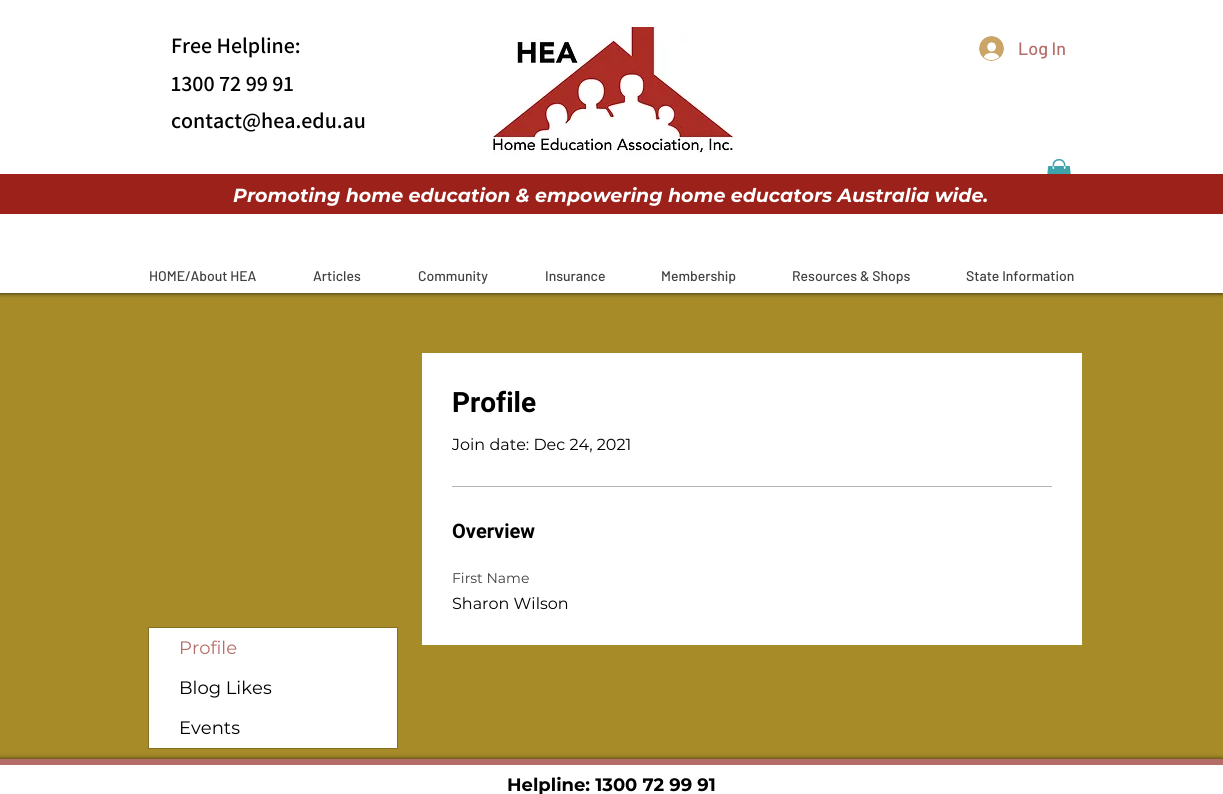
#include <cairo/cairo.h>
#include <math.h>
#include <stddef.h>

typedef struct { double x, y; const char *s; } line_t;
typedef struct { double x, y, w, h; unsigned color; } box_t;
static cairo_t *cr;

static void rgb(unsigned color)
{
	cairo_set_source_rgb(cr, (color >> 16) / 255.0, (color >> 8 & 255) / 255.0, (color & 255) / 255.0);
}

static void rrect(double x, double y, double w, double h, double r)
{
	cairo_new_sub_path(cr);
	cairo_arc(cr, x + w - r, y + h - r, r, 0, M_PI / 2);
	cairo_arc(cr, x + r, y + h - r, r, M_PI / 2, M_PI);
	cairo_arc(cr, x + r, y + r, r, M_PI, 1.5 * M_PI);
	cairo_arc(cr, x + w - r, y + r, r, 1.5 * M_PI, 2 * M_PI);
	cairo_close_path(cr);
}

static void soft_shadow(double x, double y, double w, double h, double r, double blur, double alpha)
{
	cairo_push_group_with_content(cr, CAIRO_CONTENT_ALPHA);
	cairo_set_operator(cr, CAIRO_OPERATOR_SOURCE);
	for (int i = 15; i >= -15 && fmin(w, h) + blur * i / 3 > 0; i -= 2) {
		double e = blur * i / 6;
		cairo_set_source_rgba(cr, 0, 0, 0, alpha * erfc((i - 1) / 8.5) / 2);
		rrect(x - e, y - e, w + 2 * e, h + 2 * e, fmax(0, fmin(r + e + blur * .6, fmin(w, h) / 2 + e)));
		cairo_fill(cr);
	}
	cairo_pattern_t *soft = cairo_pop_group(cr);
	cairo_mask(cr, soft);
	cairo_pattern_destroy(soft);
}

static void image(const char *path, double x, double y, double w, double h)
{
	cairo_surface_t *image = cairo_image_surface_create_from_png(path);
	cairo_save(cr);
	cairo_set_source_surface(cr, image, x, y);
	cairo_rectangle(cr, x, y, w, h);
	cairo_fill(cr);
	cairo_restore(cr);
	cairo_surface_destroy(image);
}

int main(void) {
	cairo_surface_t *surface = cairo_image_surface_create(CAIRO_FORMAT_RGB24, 1223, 794);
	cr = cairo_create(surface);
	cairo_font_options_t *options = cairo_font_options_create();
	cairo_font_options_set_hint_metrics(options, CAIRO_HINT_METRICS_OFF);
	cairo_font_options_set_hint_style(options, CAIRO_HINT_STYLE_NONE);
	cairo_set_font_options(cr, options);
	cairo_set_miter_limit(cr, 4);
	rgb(0xa68b28);
	cairo_paint(cr);
	rgb(0x000000);
	soft_shadow(0, 1, 1223, 293, 0, 2, 0.6);
	rgb(0xffffff);
	cairo_rectangle(cr, 0, 0, 1223, 293);
	cairo_fill(cr);
	image("img/1.png", 493, 27, 240, 128);
	image("img/2.png", 979, 36, 25, 25);
	image("img/3.png", 1047, 159, 24, 15);
	{
		static const box_t items[] = {
			{0, 174, 1223, 40, 0x9c211a},
			{422, 353, 660, 292, 0xffffff},
			{452, 486, 600, 1, 0xb3b3b3},
		};
		for (size_t i = 0; i < sizeof items / sizeof *items; i++) {
			rgb(items[i].color);
			cairo_rectangle(cr, items[i].x, items[i].y, items[i].w, items[i].h);
			cairo_fill(cr);
		}
	}
	cairo_rectangle(cr, 148.5, 627.5, 249, 121);
	rgb(0x856f20);
	cairo_set_line_width(cr, 1);
	cairo_stroke(cr);
	rgb(0xffffff);
	cairo_rectangle(cr, 149, 628, 248, 120);
	cairo_fill(cr);
	rgb(0x000000);
	soft_shadow(0, 759, 1223, 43, 0, 2.5, 0.7);
	rgb(0xffffff);
	cairo_rectangle(cr, 0, 765, 1223, 29);
	cairo_fill(cr);
	rgb(0xb56d69);
	cairo_rectangle(cr, 0, 759, 1223, 6);
	cairo_fill(cr);
	cairo_select_font_face(cr, "Assistant SemiBold", CAIRO_FONT_SLANT_NORMAL, CAIRO_FONT_WEIGHT_NORMAL);
	cairo_set_font_size(cr, 22);
	rgb(0x000000);
	{
		static const line_t items[] = {
			{171, 53, "Free Helpline:"},
			{171, 91, "1300 72 99 91"},
			{171, 128, "contact@hea.edu.au"},
		};
		for (size_t i = 0; i < sizeof items / sizeof *items; i++) {
			cairo_move_to(cr, items[i].x, items[i].y);
			cairo_show_text(cr, items[i].s);
		}
	}
	cairo_select_font_face(cr, "Barlow Medium", CAIRO_FONT_SLANT_NORMAL, CAIRO_FONT_WEIGHT_NORMAL);
	cairo_set_font_size(cr, 18);
	rgb(0xb56d69);
	cairo_move_to(cr, 1018, 55);
	cairo_show_text(cr, "Log In");
	cairo_select_font_face(cr, "Montserrat", CAIRO_FONT_SLANT_ITALIC, CAIRO_FONT_WEIGHT_BOLD);
	cairo_set_font_size(cr, 19);
	rgb(0xffffff);
	cairo_move_to(cr, 233, 202);
	cairo_show_text(cr, "Promoting home education & empowering home educators Australia wide.");
	cairo_select_font_face(cr, "Barlow Medium", CAIRO_FONT_SLANT_NORMAL, CAIRO_FONT_WEIGHT_NORMAL);
	cairo_set_font_size(cr, 14);
	rgb(0x404040);
	{
		static const line_t items[] = {
			{149, 281, "HOME/About HEA"},
			{313, 281, "Articles"},
			{418, 281, "Community"},
			{545, 281, "Insurance"},
			{661, 281, "Membership"},
			{792, 281, "Resources & Shops"},
			{966, 281, "State Information"},
		};
		for (size_t i = 0; i < sizeof items / sizeof *items; i++) {
			cairo_move_to(cr, items[i].x, items[i].y);
			cairo_show_text(cr, items[i].s);
		}
	}
	cairo_select_font_face(cr, "Roboto", CAIRO_FONT_SLANT_NORMAL, CAIRO_FONT_WEIGHT_BOLD);
	cairo_set_font_size(cr, 28);
	rgb(0x000000);
	cairo_move_to(cr, 452, 412);
	cairo_show_text(cr, "Profile");
	cairo_select_font_face(cr, "Montserrat", CAIRO_FONT_SLANT_NORMAL, CAIRO_FONT_WEIGHT_NORMAL);
	cairo_set_font_size(cr, 16);
	cairo_move_to(cr, 452, 450);
	cairo_show_text(cr, "Join date: Dec 24, 2021");
	cairo_select_font_face(cr, "Roboto", CAIRO_FONT_SLANT_NORMAL, CAIRO_FONT_WEIGHT_BOLD);
	cairo_set_font_size(cr, 20);
	cairo_move_to(cr, 452, 538);
	cairo_show_text(cr, "Overview");
	cairo_select_font_face(cr, "Montserrat", CAIRO_FONT_SLANT_NORMAL, CAIRO_FONT_WEIGHT_NORMAL);
	cairo_set_font_size(cr, 14);
	rgb(0x404040);
	cairo_move_to(cr, 452, 583);
	cairo_show_text(cr, "First Name");
	cairo_set_font_size(cr, 16);
	rgb(0x000000);
	cairo_move_to(cr, 452, 609);
	cairo_show_text(cr, "Sharon Wilson");
	cairo_set_font_size(cr, 18);
	rgb(0xb56d69);
	cairo_move_to(cr, 179, 654);
	cairo_show_text(cr, "Profile");
	rgb(0x000000);
	cairo_move_to(cr, 179, 694);
	cairo_show_text(cr, "Blog Likes");
	cairo_move_to(cr, 179, 734);
	cairo_show_text(cr, "Events");
	cairo_select_font_face(cr, "Montserrat", CAIRO_FONT_SLANT_NORMAL, CAIRO_FONT_WEIGHT_BOLD);
	cairo_move_to(cr, 507, 791);
	cairo_show_text(cr, "Helpline: 1300 72 99 91");
	cairo_surface_write_to_png(surface, "page.png");
	cairo_font_options_destroy(options);
	cairo_destroy(cr);
	cairo_surface_destroy(surface);
	return 0;
}
